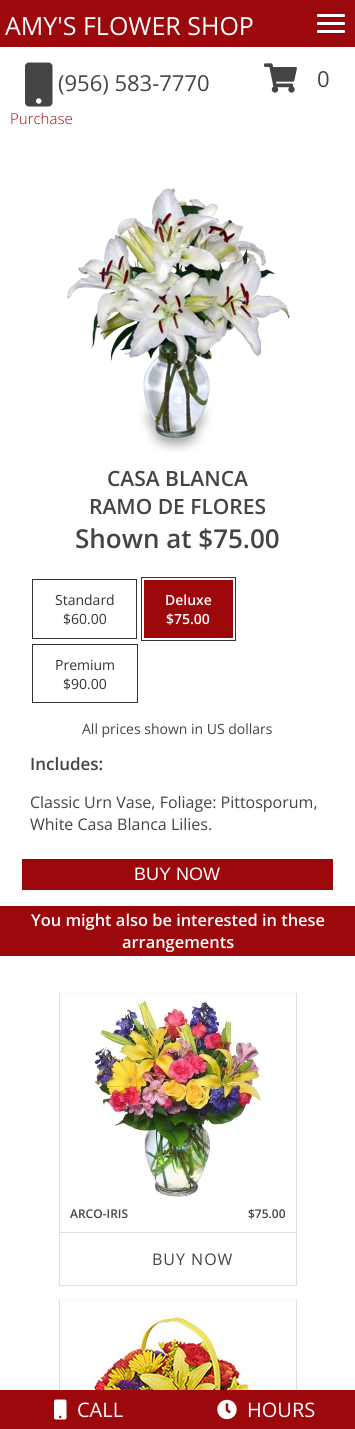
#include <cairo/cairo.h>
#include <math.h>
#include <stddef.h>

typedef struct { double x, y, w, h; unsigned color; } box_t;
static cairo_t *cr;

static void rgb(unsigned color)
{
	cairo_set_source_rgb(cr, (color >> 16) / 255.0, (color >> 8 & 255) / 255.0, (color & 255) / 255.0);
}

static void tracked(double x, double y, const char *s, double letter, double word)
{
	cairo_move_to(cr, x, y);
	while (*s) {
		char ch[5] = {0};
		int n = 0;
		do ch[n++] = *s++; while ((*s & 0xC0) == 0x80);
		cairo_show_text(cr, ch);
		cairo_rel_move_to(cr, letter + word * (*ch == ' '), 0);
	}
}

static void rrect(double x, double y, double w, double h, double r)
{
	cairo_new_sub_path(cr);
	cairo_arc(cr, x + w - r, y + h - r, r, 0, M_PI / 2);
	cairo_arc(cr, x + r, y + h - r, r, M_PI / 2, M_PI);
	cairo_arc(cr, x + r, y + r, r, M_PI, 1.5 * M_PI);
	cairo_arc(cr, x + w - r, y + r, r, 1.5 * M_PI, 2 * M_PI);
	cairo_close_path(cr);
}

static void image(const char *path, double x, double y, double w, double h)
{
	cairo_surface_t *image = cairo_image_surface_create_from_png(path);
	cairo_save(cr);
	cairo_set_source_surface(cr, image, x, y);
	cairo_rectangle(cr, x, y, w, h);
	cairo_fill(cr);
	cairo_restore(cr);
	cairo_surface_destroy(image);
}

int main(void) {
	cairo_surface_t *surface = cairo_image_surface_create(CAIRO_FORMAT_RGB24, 355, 1429);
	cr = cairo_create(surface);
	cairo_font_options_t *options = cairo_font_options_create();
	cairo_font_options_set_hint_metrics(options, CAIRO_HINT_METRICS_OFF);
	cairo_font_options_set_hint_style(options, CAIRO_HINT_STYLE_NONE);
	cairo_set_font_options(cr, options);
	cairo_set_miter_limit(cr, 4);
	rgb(0xffffff);
	cairo_paint(cr);
	rgb(0x9d080d);
	cairo_rectangle(cr, 0, 0, 355, 47);
	cairo_fill(cr);
	rgb(0x76060a);
	cairo_new_path(cr);
	cairo_move_to(cr, 317, 16);
	cairo_curve_to(cr, 317, 19, 319, 18, 322.5, 18);
	cairo_line_to(cr, 339.5, 18);
	cairo_curve_to(cr, 343, 18, 345, 19, 345, 16);
	cairo_line_to(cr, 344.5, 17);
	cairo_line_to(cr, 317.5, 17);
	cairo_close_path(cr);
	cairo_fill(cr);
	rgb(0xffffff);
	rrect(317, 14, 28, 3, 1);
	cairo_fill(cr);
	rgb(0x76060a);
	cairo_new_path(cr);
	cairo_move_to(cr, 317, 24);
	cairo_curve_to(cr, 317, 27, 319, 26, 322.5, 26);
	cairo_line_to(cr, 339.5, 26);
	cairo_curve_to(cr, 343, 26, 345, 27, 345, 24);
	cairo_line_to(cr, 344.5, 25);
	cairo_line_to(cr, 317.5, 25);
	cairo_close_path(cr);
	cairo_fill(cr);
	rgb(0xffffff);
	rrect(317, 22, 28, 3, 1);
	cairo_fill(cr);
	rgb(0x76060a);
	cairo_new_path(cr);
	cairo_move_to(cr, 317, 32);
	cairo_curve_to(cr, 317, 35, 319, 34, 322.5, 34);
	cairo_line_to(cr, 339.5, 34);
	cairo_curve_to(cr, 343, 34, 345, 35, 345, 32);
	cairo_line_to(cr, 344.5, 33);
	cairo_line_to(cr, 317.5, 33);
	cairo_close_path(cr);
	cairo_fill(cr);
	rgb(0xffffff);
	rrect(317, 30, 28, 3, 1);
	cairo_fill(cr);
	image("img/1.png", 25, 62, 28, 45);
	image("img/2.png", 264, 63, 33, 30);
	image("img/3.png", 67, 188, 223, 264);
	cairo_rectangle(cr, 32.5, 579.5, 104, 59);
	rgb(0x333333);
	cairo_set_line_width(cr, 1);
	cairo_stroke(cr);
	cairo_rectangle(cr, 141.5, 577.5, 94, 63);
	cairo_stroke(cr);
	rgb(0x9d080d);
	cairo_rectangle(cr, 144, 580, 89, 58);
	cairo_fill(cr);
	cairo_rectangle(cr, 32.5, 644.5, 105, 58);
	rgb(0x333333);
	cairo_stroke(cr);
	{
		static const box_t items[] = {
			{22, 859, 311, 31, 0x9d080d},
			{0, 906, 355, 50, 0x9d080d},
			{59, 993, 238, 1, 0xf9f9f9},
			{296, 993, 1, 293, 0xe2dedd},
			{59, 1285, 238, 1, 0xe2dedd},
			{59, 993, 1, 293, 0xe2dedd},
		};
		for (size_t i = 0; i < sizeof items / sizeof *items; i++) {
			rgb(items[i].color);
			cairo_rectangle(cr, items[i].x, items[i].y, items[i].w, items[i].h);
			cairo_fill(cr);
		}
	}
	image("img/4.png", 94, 999, 167, 199);
	{
		static const box_t items[] = {
			{60, 1232, 236, 1, 0xe2dedd},
			{59, 1299, 238, 1, 0xf9f9f9},
			{296, 1299, 1, 91, 0xe2dedd},
			{59, 1299, 1, 91, 0xe2dedd},
		};
		for (size_t i = 0; i < sizeof items / sizeof *items; i++) {
			rgb(items[i].color);
			cairo_rectangle(cr, items[i].x, items[i].y, items[i].w, items[i].h);
			cairo_fill(cr);
		}
	}
	image("img/5.png", 94, 1312, 167, 78);
	rgb(0x9d080d);
	cairo_rectangle(cr, 0, 1390, 355, 39);
	cairo_fill(cr);
	image("img/6.png", 54, 1399, 13, 21);
	image("img/7.png", 217, 1399, 20, 21);
	cairo_select_font_face(cr, "Open Sans", CAIRO_FONT_SLANT_NORMAL, CAIRO_FONT_WEIGHT_NORMAL);
	cairo_set_font_size(cr, 25);
	rgb(0xffffff);
	cairo_move_to(cr, 5, 35);
	cairo_show_text(cr, "AMY'S FLOWER SHOP");
	cairo_set_font_size(cr, 22);
	rgb(0x444444);
	cairo_move_to(cr, 58, 91);
	cairo_show_text(cr, "(956) 583-7770");
	cairo_move_to(cr, 317, 87);
	cairo_show_text(cr, "0");
	cairo_select_font_face(cr, "Open Sans Light", CAIRO_FONT_SLANT_NORMAL, CAIRO_FONT_WEIGHT_NORMAL);
	cairo_set_font_size(cr, 15);
	rgb(0x9d080d);
	cairo_move_to(cr, 10, 124);
	cairo_show_text(cr, "Purchase");
	cairo_select_font_face(cr, "Open Sans SemiBold", CAIRO_FONT_SLANT_NORMAL, CAIRO_FONT_WEIGHT_NORMAL);
	cairo_set_font_size(cr, 21);
	rgb(0x444444);
	cairo_move_to(cr, 107, 486);
	cairo_show_text(cr, "CASA BLANCA");
	cairo_move_to(cr, 89, 514);
	cairo_show_text(cr, "RAMO DE FLORES");
	cairo_set_font_size(cr, 26);
	cairo_move_to(cr, 75, 548);
	cairo_show_text(cr, "Shown at $75.00");
	cairo_select_font_face(cr, "Open Sans", CAIRO_FONT_SLANT_NORMAL, CAIRO_FONT_WEIGHT_NORMAL);
	cairo_set_font_size(cr, 14);
	rgb(0x333333);
	cairo_move_to(cr, 55, 605);
	cairo_show_text(cr, "Standard");
	cairo_move_to(cr, 63, 624);
	cairo_show_text(cr, "$60.00");
	cairo_select_font_face(cr, "Open Sans SemiBold", CAIRO_FONT_SLANT_NORMAL, CAIRO_FONT_WEIGHT_NORMAL);
	rgb(0xffffff);
	cairo_move_to(cr, 165, 605);
	cairo_show_text(cr, "Deluxe");
	cairo_move_to(cr, 166, 624);
	cairo_show_text(cr, "$75.00");
	cairo_select_font_face(cr, "Open Sans", CAIRO_FONT_SLANT_NORMAL, CAIRO_FONT_WEIGHT_NORMAL);
	rgb(0x333333);
	cairo_move_to(cr, 55, 670);
	cairo_show_text(cr, "Premium");
	cairo_move_to(cr, 63, 689);
	cairo_show_text(cr, "$90.00");
	rgb(0x444444);
	cairo_move_to(cr, 82, 734);
	cairo_show_text(cr, "All prices shown in US dollars");
	cairo_select_font_face(cr, "Open Sans SemiBold", CAIRO_FONT_SLANT_NORMAL, CAIRO_FONT_WEIGHT_NORMAL);
	cairo_set_font_size(cr, 17);
	cairo_move_to(cr, 30, 770);
	cairo_show_text(cr, "Includes:");
	cairo_select_font_face(cr, "Open Sans", CAIRO_FONT_SLANT_NORMAL, CAIRO_FONT_WEIGHT_NORMAL);
	cairo_set_font_size(cr, 16);
	cairo_move_to(cr, 30, 808);
	cairo_show_text(cr, "Classic Urn Vase, Foliage: Pittosporum,");
	cairo_move_to(cr, 30, 830);
	cairo_show_text(cr, "White Casa Blanca Lilies.");
	cairo_select_font_face(cr, "Liberation Sans", CAIRO_FONT_SLANT_NORMAL, CAIRO_FONT_WEIGHT_NORMAL);
	cairo_set_font_size(cr, 18);
	rgb(0xffffff);
	cairo_move_to(cr, 134, 880);
	cairo_show_text(cr, "BUY NOW");
	cairo_select_font_face(cr, "Open Sans SemiBold", CAIRO_FONT_SLANT_NORMAL, CAIRO_FONT_WEIGHT_NORMAL);
	cairo_set_font_size(cr, 16.4);
	cairo_move_to(cr, 31, 926);
	cairo_show_text(cr, "You might also be interested in these");
	cairo_move_to(cr, 122, 948);
	cairo_show_text(cr, "arrangements");
	cairo_set_font_size(cr, 12);
	rgb(0x444444);
	cairo_move_to(cr, 70, 1218);
	cairo_show_text(cr, "ARCO-IRIS");
	cairo_move_to(cr, 248, 1218);
	cairo_show_text(cr, "$75.00");
	cairo_select_font_face(cr, "Open Sans", CAIRO_FONT_SLANT_NORMAL, CAIRO_FONT_WEIGHT_NORMAL);
	cairo_set_font_size(cr, 16);
	tracked(152, 1265, "BUY NOW", 1, 0);
	cairo_set_font_size(cr, 20);
	rgb(0xffffff);
	cairo_move_to(cr, 77, 1417);
	cairo_show_text(cr, "CALL");
	cairo_move_to(cr, 247, 1417);
	cairo_show_text(cr, "HOURS");
	cairo_surface_write_to_png(surface, "page.png");
	cairo_font_options_destroy(options);
	cairo_destroy(cr);
	cairo_surface_destroy(surface);
	return 0;
}
